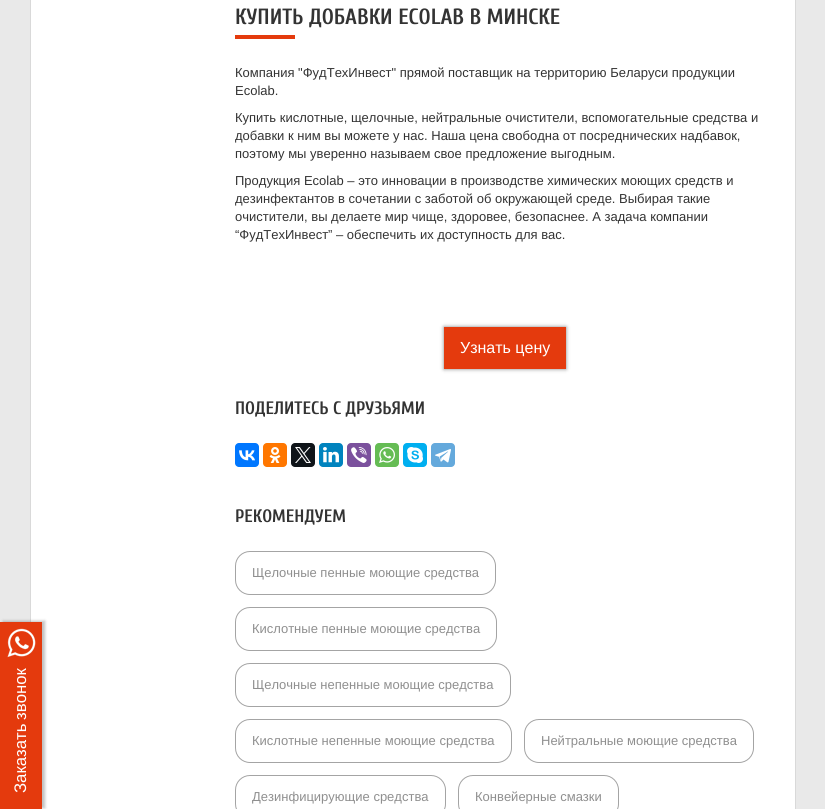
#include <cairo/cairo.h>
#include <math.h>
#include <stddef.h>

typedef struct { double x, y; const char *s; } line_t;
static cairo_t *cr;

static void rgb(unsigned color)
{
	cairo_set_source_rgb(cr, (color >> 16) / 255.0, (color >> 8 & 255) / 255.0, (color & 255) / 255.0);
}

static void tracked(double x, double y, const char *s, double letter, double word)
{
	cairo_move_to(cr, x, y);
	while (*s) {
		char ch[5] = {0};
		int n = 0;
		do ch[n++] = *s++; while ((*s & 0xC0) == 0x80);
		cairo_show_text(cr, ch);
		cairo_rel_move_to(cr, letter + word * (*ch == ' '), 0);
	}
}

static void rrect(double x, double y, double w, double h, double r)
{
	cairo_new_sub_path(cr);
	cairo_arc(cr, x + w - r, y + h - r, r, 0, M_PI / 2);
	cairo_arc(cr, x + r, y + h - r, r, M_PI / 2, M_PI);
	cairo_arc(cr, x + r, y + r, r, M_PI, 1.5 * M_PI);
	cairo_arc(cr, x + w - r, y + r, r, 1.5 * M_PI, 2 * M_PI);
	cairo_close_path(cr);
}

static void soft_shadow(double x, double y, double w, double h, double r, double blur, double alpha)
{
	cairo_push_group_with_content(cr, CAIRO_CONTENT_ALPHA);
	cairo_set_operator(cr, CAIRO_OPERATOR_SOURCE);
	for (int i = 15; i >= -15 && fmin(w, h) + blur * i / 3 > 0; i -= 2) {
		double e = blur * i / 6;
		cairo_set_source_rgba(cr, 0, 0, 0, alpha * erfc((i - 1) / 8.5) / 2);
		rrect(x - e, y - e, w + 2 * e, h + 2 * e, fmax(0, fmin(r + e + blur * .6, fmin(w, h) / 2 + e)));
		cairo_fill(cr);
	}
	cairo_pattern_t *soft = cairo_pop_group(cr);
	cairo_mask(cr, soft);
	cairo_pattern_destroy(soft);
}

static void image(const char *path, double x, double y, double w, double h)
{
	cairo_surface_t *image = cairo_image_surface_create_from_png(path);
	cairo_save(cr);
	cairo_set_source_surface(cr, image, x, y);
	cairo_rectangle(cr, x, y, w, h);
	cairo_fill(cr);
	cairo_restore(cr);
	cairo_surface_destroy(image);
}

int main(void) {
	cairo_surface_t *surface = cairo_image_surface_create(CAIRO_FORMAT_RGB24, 825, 809);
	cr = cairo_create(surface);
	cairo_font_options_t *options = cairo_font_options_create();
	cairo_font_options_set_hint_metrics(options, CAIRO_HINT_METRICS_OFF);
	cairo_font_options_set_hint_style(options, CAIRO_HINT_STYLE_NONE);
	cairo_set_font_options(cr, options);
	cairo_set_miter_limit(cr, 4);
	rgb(0xe9e9e9);
	cairo_paint(cr);
	rgb(0xffffff);
	cairo_rectangle(cr, 30.5, -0.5, 765, 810);
	cairo_fill_preserve(cr);
	rgb(0xd9d9d9);
	cairo_set_line_width(cr, 1);
	cairo_stroke(cr);
	rgb(0x000000);
	soft_shadow(3, 621, 42, 187, 0, 1.5, 0.25);
	rgb(0xe43a0d);
	cairo_rectangle(cr, 0, 622, 42, 187);
	cairo_fill(cr);
	image("img/1.png", 7, 628, 29, 30);
	cairo_rectangle(cr, 235, 35, 60, 4);
	cairo_fill(cr);
	rgb(0x000000);
	soft_shadow(444, 327, 122, 42, 0, 2, 0.5);
	rgb(0xe43a0d);
	cairo_rectangle(cr, 444, 327, 122, 42);
	cairo_fill(cr);
	rgb(0x0077ff);
	rrect(235, 443, 24, 24, 4);
	cairo_fill(cr);
	image("img/2.png", 239, 450, 16, 11);
	rgb(0xff7700);
	rrect(263, 443, 24, 24, 4);
	cairo_fill(cr);
	image("img/3.png", 269, 447, 12, 16);
	rgb(0x0f1419);
	rrect(291, 443, 24, 24, 4);
	cairo_fill(cr);
	image("img/4.png", 295, 447, 16, 16);
	rgb(0x0083be);
	rrect(319, 443, 24, 24, 4);
	cairo_fill(cr);
	image("img/5.png", 323, 447, 16, 16);
	rgb(0x7b519d);
	rrect(347, 443, 24, 24, 4);
	cairo_fill(cr);
	image("img/6.png", 351, 447, 16, 16);
	rgb(0x65bc54);
	rrect(375, 443, 24, 24, 4);
	cairo_fill(cr);
	image("img/7.png", 379, 447, 16, 16);
	rgb(0x00aff0);
	rrect(403, 443, 24, 24, 4);
	cairo_fill(cr);
	image("img/8.png", 407, 447, 16, 16);
	rgb(0x64a9dc);
	rrect(431, 443, 24, 24, 4);
	cairo_fill(cr);
	image("img/9.png", 435, 449, 16, 14);
	rrect(235.5, 551.5, 260, 43, 14.5);
	rgb(0xa4a4a4);
	cairo_stroke(cr);
	rrect(235.5, 607.5, 261, 43, 14.5);
	cairo_stroke(cr);
	rrect(235.5, 663.5, 275, 43, 14.5);
	cairo_stroke(cr);
	rrect(235.5, 719.5, 276, 43, 14.5);
	cairo_stroke(cr);
	rrect(524.5, 719.5, 229, 43, 14.5);
	cairo_stroke(cr);
	rrect(235.5, 775.5, 210, 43, 14.5);
	cairo_stroke(cr);
	rrect(458.5, 775.5, 160, 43, 14.5);
	cairo_stroke(cr);
	cairo_select_font_face(cr, "Liberation Sans", CAIRO_FONT_SLANT_NORMAL, CAIRO_FONT_WEIGHT_NORMAL);
	cairo_set_font_size(cr, 16.75);
	rgb(0xffffff);
	cairo_save(cr);
	cairo_translate(cr, 26, 793);
	cairo_rotate(cr, -90 * M_PI / 180);
	tracked(0, 0, "Заказать звонок", 0, -1);
	cairo_restore(cr);
	cairo_select_font_face(cr, "Cuprum", CAIRO_FONT_SLANT_NORMAL, CAIRO_FONT_WEIGHT_BOLD);
	cairo_set_font_size(cr, 22);
	rgb(0x333333);
	cairo_move_to(cr, 235, 24);
	cairo_show_text(cr, "КУПИТЬ ДОБАВКИ ECOLAB В МИНСКЕ");
	cairo_select_font_face(cr, "Liberation Sans", CAIRO_FONT_SLANT_NORMAL, CAIRO_FONT_WEIGHT_NORMAL);
	cairo_set_font_size(cr, 13);
	{
		static const line_t items[] = {
			{235, 77, "Компания \"ФудТехИнвест\" прямой поставщик на территорию Беларуси продукции"},
			{235, 95, "Ecolab."},
			{235, 122, "Купить кислотные, щелочные, нейтральные очистители, вспомогательные средства и"},
			{235, 140, "добавки к ним вы можете у нас. Наша цена свободна от посреднических надбавок,"},
			{235, 158, "поэтому мы уверенно называем свое предложение выгодным."},
			{235, 185, "Продукция Ecolab – это инновации в производстве химических моющих средств и"},
			{235, 203, "дезинфектантов в сочетании с заботой об окружающей среде. Выбирая такие"},
			{235, 221, "очистители, вы делаете мир чище, здоровее, безопаснее. А задача компании"},
			{235, 239, "“ФудТехИнвест” – обеспечить их доступность для вас."},
		};
		for (size_t i = 0; i < sizeof items / sizeof *items; i++) {
			cairo_move_to(cr, items[i].x, items[i].y);
			cairo_show_text(cr, items[i].s);
		}
	}
	cairo_set_font_size(cr, 16);
	rgb(0xffffff);
	cairo_move_to(cr, 460, 353);
	cairo_show_text(cr, "Узнать цену");
	cairo_select_font_face(cr, "Cuprum", CAIRO_FONT_SLANT_NORMAL, CAIRO_FONT_WEIGHT_BOLD);
	cairo_set_font_size(cr, 18);
	rgb(0x333333);
	cairo_move_to(cr, 235, 414);
	cairo_show_text(cr, "ПОДЕЛИТЕСЬ С ДРУЗЬЯМИ");
	cairo_move_to(cr, 235, 522);
	cairo_show_text(cr, "РЕКОМЕНДУЕМ");
	cairo_select_font_face(cr, "Liberation Sans", CAIRO_FONT_SLANT_NORMAL, CAIRO_FONT_WEIGHT_NORMAL);
	cairo_set_font_size(cr, 13);
	rgb(0x8f8f8f);
	{
		static const line_t items[] = {
			{252, 577, "Щелочные пенные моющие средства"},
			{252, 633, "Кислотные пенные моющие средства"},
			{252, 689, "Щелочные непенные моющие средства"},
			{252, 745, "Кислотные непенные моющие средства"},
			{541, 745, "Нейтральные моющие средства"},
			{252, 801, "Дезинфицирующие средства"},
			{475, 801, "Конвейерные смазки"},
		};
		for (size_t i = 0; i < sizeof items / sizeof *items; i++) {
			cairo_move_to(cr, items[i].x, items[i].y);
			cairo_show_text(cr, items[i].s);
		}
	}
	cairo_surface_write_to_png(surface, "page.png");
	cairo_font_options_destroy(options);
	cairo_destroy(cr);
	cairo_surface_destroy(surface);
	return 0;
}
